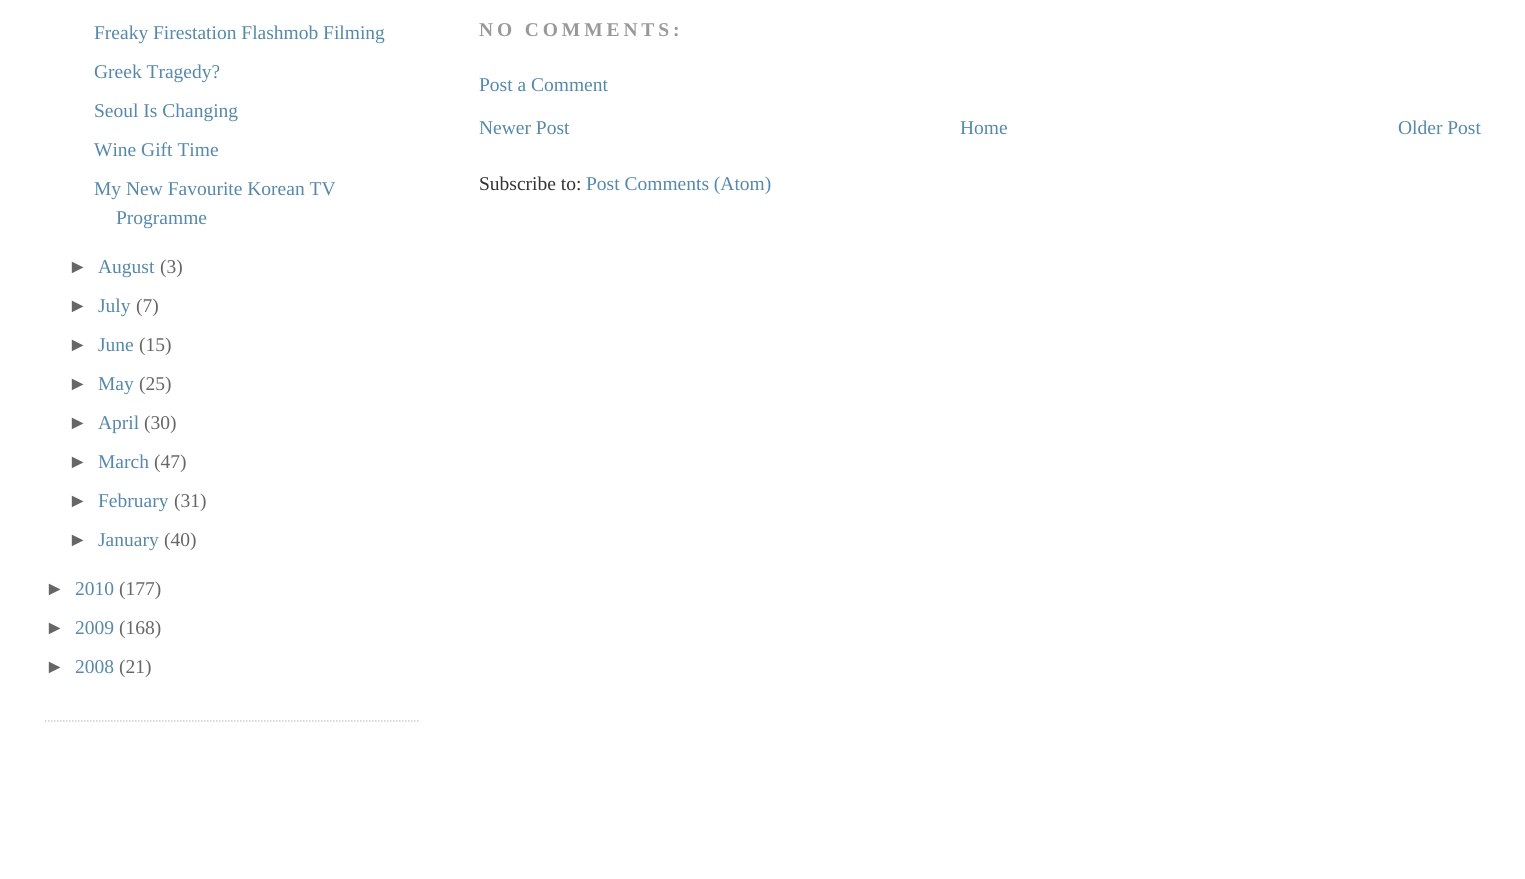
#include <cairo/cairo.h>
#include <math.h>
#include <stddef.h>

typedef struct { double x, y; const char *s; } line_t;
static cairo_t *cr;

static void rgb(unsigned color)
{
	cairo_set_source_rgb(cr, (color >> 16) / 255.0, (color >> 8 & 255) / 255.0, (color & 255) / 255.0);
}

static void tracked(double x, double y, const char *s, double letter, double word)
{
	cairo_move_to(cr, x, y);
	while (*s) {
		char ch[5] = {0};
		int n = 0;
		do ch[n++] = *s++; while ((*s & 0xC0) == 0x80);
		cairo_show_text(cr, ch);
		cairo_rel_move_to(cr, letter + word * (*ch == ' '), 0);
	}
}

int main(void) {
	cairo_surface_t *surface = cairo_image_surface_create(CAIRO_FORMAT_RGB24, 1525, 879);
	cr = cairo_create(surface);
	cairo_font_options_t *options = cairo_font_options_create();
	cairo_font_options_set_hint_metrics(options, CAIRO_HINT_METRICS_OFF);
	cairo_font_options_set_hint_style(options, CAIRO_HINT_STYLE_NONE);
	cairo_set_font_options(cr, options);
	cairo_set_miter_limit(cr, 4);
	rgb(0xffffff);
	cairo_paint(cr);
	cairo_new_path(cr);
	cairo_move_to(cr, 45, 721);
	cairo_line_to(cr, 418.5, 721);
	rgb(0xcccccc);
	cairo_set_line_width(cr, 1.5);
	cairo_set_dash(cr, (double[]){1.5, 1.5}, 2, 0);
	cairo_stroke(cr);
	cairo_select_font_face(cr, "Liberation Serif", CAIRO_FONT_SLANT_NORMAL, CAIRO_FONT_WEIGHT_NORMAL);
	cairo_set_font_size(cr, 19.5);
	rgb(0x5588aa);
	{
		static const line_t items[] = {
			{94, 39, "Freaky Firestation Flashmob Filming"},
			{94, 78, "Greek Tragedy?"},
			{94, 117, "Seoul Is Changing"},
			{94, 156, "Wine Gift Time"},
			{94, 195, "My New Favourite Korean TV"},
			{116, 224, "Programme"},
		};
		for (size_t i = 0; i < sizeof items / sizeof *items; i++) {
			cairo_move_to(cr, items[i].x, items[i].y);
			cairo_show_text(cr, items[i].s);
		}
	}
	cairo_select_font_face(cr, "Liberation Sans", CAIRO_FONT_SLANT_NORMAL, CAIRO_FONT_WEIGHT_NORMAL);
	rgb(0x666666);
	cairo_move_to(cr, 68, 273);
	cairo_show_text(cr, "►");
	cairo_select_font_face(cr, "Liberation Serif", CAIRO_FONT_SLANT_NORMAL, CAIRO_FONT_WEIGHT_NORMAL);
	rgb(0x5588aa);
	cairo_move_to(cr, 98, 273);
	cairo_show_text(cr, "August");
	rgb(0x666666);
	cairo_move_to(cr, 160, 273);
	cairo_show_text(cr, "(3)");
	cairo_select_font_face(cr, "Liberation Sans", CAIRO_FONT_SLANT_NORMAL, CAIRO_FONT_WEIGHT_NORMAL);
	cairo_move_to(cr, 68, 312);
	cairo_show_text(cr, "►");
	cairo_select_font_face(cr, "Liberation Serif", CAIRO_FONT_SLANT_NORMAL, CAIRO_FONT_WEIGHT_NORMAL);
	rgb(0x5588aa);
	cairo_move_to(cr, 98, 312);
	cairo_show_text(cr, "July");
	rgb(0x666666);
	cairo_move_to(cr, 136, 312);
	cairo_show_text(cr, "(7)");
	cairo_select_font_face(cr, "Liberation Sans", CAIRO_FONT_SLANT_NORMAL, CAIRO_FONT_WEIGHT_NORMAL);
	cairo_move_to(cr, 68, 351);
	cairo_show_text(cr, "►");
	cairo_select_font_face(cr, "Liberation Serif", CAIRO_FONT_SLANT_NORMAL, CAIRO_FONT_WEIGHT_NORMAL);
	rgb(0x5588aa);
	cairo_move_to(cr, 98, 351);
	cairo_show_text(cr, "June");
	rgb(0x666666);
	cairo_move_to(cr, 139, 351);
	cairo_show_text(cr, "(15)");
	cairo_select_font_face(cr, "Liberation Sans", CAIRO_FONT_SLANT_NORMAL, CAIRO_FONT_WEIGHT_NORMAL);
	cairo_move_to(cr, 68, 390);
	cairo_show_text(cr, "►");
	cairo_select_font_face(cr, "Liberation Serif", CAIRO_FONT_SLANT_NORMAL, CAIRO_FONT_WEIGHT_NORMAL);
	rgb(0x5588aa);
	cairo_move_to(cr, 98, 390);
	cairo_show_text(cr, "May");
	rgb(0x666666);
	cairo_move_to(cr, 139, 390);
	cairo_show_text(cr, "(25)");
	cairo_select_font_face(cr, "Liberation Sans", CAIRO_FONT_SLANT_NORMAL, CAIRO_FONT_WEIGHT_NORMAL);
	cairo_move_to(cr, 68, 429);
	cairo_show_text(cr, "►");
	cairo_select_font_face(cr, "Liberation Serif", CAIRO_FONT_SLANT_NORMAL, CAIRO_FONT_WEIGHT_NORMAL);
	rgb(0x5588aa);
	cairo_move_to(cr, 98, 429);
	cairo_show_text(cr, "April");
	rgb(0x666666);
	cairo_move_to(cr, 144, 429);
	cairo_show_text(cr, "(30)");
	cairo_select_font_face(cr, "Liberation Sans", CAIRO_FONT_SLANT_NORMAL, CAIRO_FONT_WEIGHT_NORMAL);
	cairo_move_to(cr, 68, 468);
	cairo_show_text(cr, "►");
	cairo_select_font_face(cr, "Liberation Serif", CAIRO_FONT_SLANT_NORMAL, CAIRO_FONT_WEIGHT_NORMAL);
	rgb(0x5588aa);
	cairo_move_to(cr, 98, 468);
	cairo_show_text(cr, "March");
	rgb(0x666666);
	cairo_move_to(cr, 154, 468);
	cairo_show_text(cr, "(47)");
	cairo_select_font_face(cr, "Liberation Sans", CAIRO_FONT_SLANT_NORMAL, CAIRO_FONT_WEIGHT_NORMAL);
	cairo_move_to(cr, 68, 507);
	cairo_show_text(cr, "►");
	cairo_select_font_face(cr, "Liberation Serif", CAIRO_FONT_SLANT_NORMAL, CAIRO_FONT_WEIGHT_NORMAL);
	rgb(0x5588aa);
	cairo_move_to(cr, 98, 507);
	cairo_show_text(cr, "February");
	rgb(0x666666);
	cairo_move_to(cr, 174, 507);
	cairo_show_text(cr, "(31)");
	cairo_select_font_face(cr, "Liberation Sans", CAIRO_FONT_SLANT_NORMAL, CAIRO_FONT_WEIGHT_NORMAL);
	cairo_move_to(cr, 68, 546);
	cairo_show_text(cr, "►");
	cairo_select_font_face(cr, "Liberation Serif", CAIRO_FONT_SLANT_NORMAL, CAIRO_FONT_WEIGHT_NORMAL);
	rgb(0x5588aa);
	cairo_move_to(cr, 98, 546);
	cairo_show_text(cr, "January");
	rgb(0x666666);
	cairo_move_to(cr, 164, 546);
	cairo_show_text(cr, "(40)");
	cairo_select_font_face(cr, "Liberation Sans", CAIRO_FONT_SLANT_NORMAL, CAIRO_FONT_WEIGHT_NORMAL);
	cairo_move_to(cr, 45, 595);
	cairo_show_text(cr, "►");
	cairo_select_font_face(cr, "Liberation Serif", CAIRO_FONT_SLANT_NORMAL, CAIRO_FONT_WEIGHT_NORMAL);
	rgb(0x5588aa);
	cairo_move_to(cr, 75, 595);
	cairo_show_text(cr, "2010");
	rgb(0x666666);
	cairo_move_to(cr, 119, 595);
	cairo_show_text(cr, "(177)");
	cairo_select_font_face(cr, "Liberation Sans", CAIRO_FONT_SLANT_NORMAL, CAIRO_FONT_WEIGHT_NORMAL);
	cairo_move_to(cr, 45, 634);
	cairo_show_text(cr, "►");
	cairo_select_font_face(cr, "Liberation Serif", CAIRO_FONT_SLANT_NORMAL, CAIRO_FONT_WEIGHT_NORMAL);
	rgb(0x5588aa);
	cairo_move_to(cr, 75, 634);
	cairo_show_text(cr, "2009");
	rgb(0x666666);
	cairo_move_to(cr, 119, 634);
	cairo_show_text(cr, "(168)");
	cairo_select_font_face(cr, "Liberation Sans", CAIRO_FONT_SLANT_NORMAL, CAIRO_FONT_WEIGHT_NORMAL);
	cairo_move_to(cr, 45, 673);
	cairo_show_text(cr, "►");
	cairo_select_font_face(cr, "Liberation Serif", CAIRO_FONT_SLANT_NORMAL, CAIRO_FONT_WEIGHT_NORMAL);
	rgb(0x5588aa);
	cairo_move_to(cr, 75, 673);
	cairo_show_text(cr, "2008");
	rgb(0x666666);
	cairo_move_to(cr, 119, 673);
	cairo_show_text(cr, "(21)");
	cairo_select_font_face(cr, "Liberation Serif", CAIRO_FONT_SLANT_NORMAL, CAIRO_FONT_WEIGHT_BOLD);
	rgb(0x999999);
	tracked(479, 36, "NO COMMENTS:", 3.9, 0);
	cairo_select_font_face(cr, "Liberation Serif", CAIRO_FONT_SLANT_NORMAL, CAIRO_FONT_WEIGHT_NORMAL);
	rgb(0x5588aa);
	{
		static const line_t items[] = {
			{479, 91, "Post a Comment"},
			{479, 134, "Newer Post"},
			{960, 134, "Home"},
			{1398, 134, "Older Post"},
		};
		for (size_t i = 0; i < sizeof items / sizeof *items; i++) {
			cairo_move_to(cr, items[i].x, items[i].y);
			cairo_show_text(cr, items[i].s);
		}
	}
	rgb(0x333333);
	cairo_move_to(cr, 479, 190);
	cairo_show_text(cr, "Subscribe to:");
	rgb(0x5588aa);
	cairo_move_to(cr, 586, 190);
	cairo_show_text(cr, "Post Comments (Atom)");
	cairo_surface_write_to_png(surface, "page.png");
	cairo_font_options_destroy(options);
	cairo_destroy(cr);
	cairo_surface_destroy(surface);
	return 0;
}
